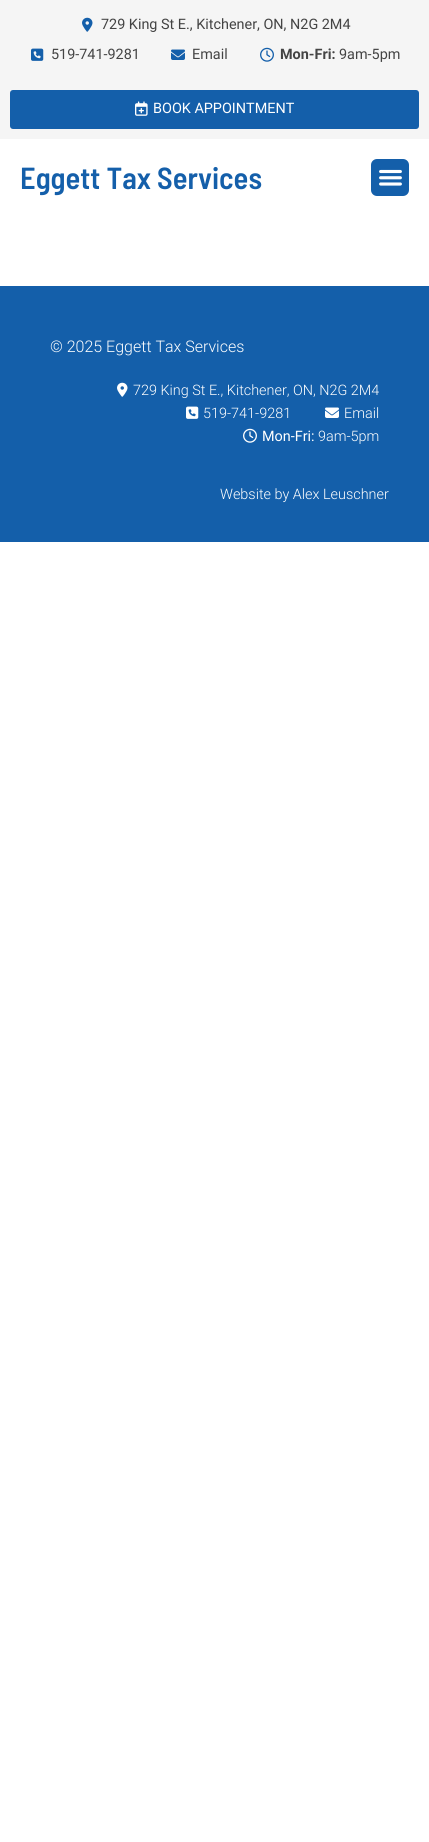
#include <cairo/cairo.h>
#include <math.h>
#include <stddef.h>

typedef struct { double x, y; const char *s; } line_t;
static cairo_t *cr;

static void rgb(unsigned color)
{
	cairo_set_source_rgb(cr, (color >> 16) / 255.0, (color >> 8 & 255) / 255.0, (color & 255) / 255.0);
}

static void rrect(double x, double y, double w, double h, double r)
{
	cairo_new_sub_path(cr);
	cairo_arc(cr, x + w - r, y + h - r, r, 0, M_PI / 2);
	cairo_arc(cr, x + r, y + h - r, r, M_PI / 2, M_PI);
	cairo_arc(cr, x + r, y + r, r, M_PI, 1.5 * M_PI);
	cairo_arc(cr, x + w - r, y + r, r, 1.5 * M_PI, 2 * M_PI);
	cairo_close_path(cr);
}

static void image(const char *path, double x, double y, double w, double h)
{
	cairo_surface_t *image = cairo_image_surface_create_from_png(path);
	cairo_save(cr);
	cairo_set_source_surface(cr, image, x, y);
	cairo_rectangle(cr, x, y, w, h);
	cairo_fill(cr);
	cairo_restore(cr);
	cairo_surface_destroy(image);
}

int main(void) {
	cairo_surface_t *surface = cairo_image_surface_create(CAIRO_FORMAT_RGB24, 429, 1842);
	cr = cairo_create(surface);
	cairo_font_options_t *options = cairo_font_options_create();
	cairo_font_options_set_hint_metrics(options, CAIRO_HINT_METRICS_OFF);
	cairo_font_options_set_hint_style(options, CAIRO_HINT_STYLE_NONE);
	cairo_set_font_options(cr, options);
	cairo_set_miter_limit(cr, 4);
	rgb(0xffffff);
	cairo_paint(cr);
	rgb(0xf5f5f5);
	cairo_rectangle(cr, 0, 0, 429, 139);
	cairo_fill(cr);
	image("img/1.png", 82, 17, 11, 15);
	image("img/2.png", 31, 48, 13, 13);
	image("img/3.png", 171, 49, 14, 11);
	image("img/4.png", 260, 47, 14, 15);
	rgb(0x145faa);
	rrect(10, 90, 409, 39, 3);
	cairo_fill(cr);
	image("img/5.png", 135, 101, 13, 15);
	rrect(371, 159, 38, 37, 6);
	cairo_fill(cr);
	image("img/6.png", 379, 169, 23, 17);
	cairo_rectangle(cr, 0, 286, 429, 256);
	cairo_fill(cr);
	image("img/7.png", 117, 382, 11, 15);
	image("img/8.png", 186, 406, 13, 13);
	image("img/9.png", 325, 407, 14, 11);
	image("img/10.png", 243, 428, 14, 15);
	cairo_select_font_face(cr, "Roboto", CAIRO_FONT_SLANT_NORMAL, CAIRO_FONT_WEIGHT_NORMAL);
	cairo_set_font_size(cr, 14.4);
	rgb(0x444444);
	{
		static const line_t items[] = {
			{101, 29, "729 King St E., Kitchener, ON, N2G 2M4"},
			{51, 59, "519-741-9281"},
			{192, 59, "Email"},
		};
		for (size_t i = 0; i < sizeof items / sizeof *items; i++) {
			cairo_move_to(cr, items[i].x, items[i].y);
			cairo_show_text(cr, items[i].s);
		}
	}
	cairo_select_font_face(cr, "Roboto", CAIRO_FONT_SLANT_NORMAL, CAIRO_FONT_WEIGHT_BOLD);
	cairo_move_to(cr, 280, 59);
	cairo_show_text(cr, "Mon-Fri:");
	cairo_select_font_face(cr, "Roboto", CAIRO_FONT_SLANT_NORMAL, CAIRO_FONT_WEIGHT_NORMAL);
	cairo_move_to(cr, 339, 59);
	cairo_show_text(cr, "9am-5pm");
	rgb(0xffffff);
	cairo_move_to(cr, 153, 113);
	cairo_show_text(cr, "BOOK APPOINTMENT");
	cairo_select_font_face(cr, "Barlow Semi Condensed SemiBold", CAIRO_FONT_SLANT_NORMAL, CAIRO_FONT_WEIGHT_NORMAL);
	cairo_set_font_size(cr, 30.5);
	rgb(0x145faa);
	cairo_move_to(cr, 20, 189);
	cairo_show_text(cr, "Eggett Tax Services");
	cairo_select_font_face(cr, "Roboto Light", CAIRO_FONT_SLANT_NORMAL, CAIRO_FONT_WEIGHT_NORMAL);
	cairo_set_font_size(cr, 16);
	rgb(0xffffff);
	cairo_move_to(cr, 50, 352);
	cairo_show_text(cr, "© 2025 Eggett Tax Services");
	cairo_set_font_size(cr, 14.4);
	{
		static const line_t items[] = {
			{133, 395, "729 King St E., Kitchener, ON, N2G 2M4"},
			{203, 418, "519-741-9281"},
			{344, 418, "Email"},
		};
		for (size_t i = 0; i < sizeof items / sizeof *items; i++) {
			cairo_move_to(cr, items[i].x, items[i].y);
			cairo_show_text(cr, items[i].s);
		}
	}
	cairo_select_font_face(cr, "Roboto", CAIRO_FONT_SLANT_NORMAL, CAIRO_FONT_WEIGHT_NORMAL);
	cairo_move_to(cr, 262, 441);
	cairo_show_text(cr, "Mon-Fri:");
	cairo_select_font_face(cr, "Roboto Light", CAIRO_FONT_SLANT_NORMAL, CAIRO_FONT_WEIGHT_NORMAL);
	cairo_move_to(cr, 318, 441);
	cairo_show_text(cr, "9am-5pm");
	cairo_move_to(cr, 220, 499);
	cairo_show_text(cr, "Website by Alex Leuschner");
	cairo_surface_write_to_png(surface, "page.png");
	cairo_font_options_destroy(options);
	cairo_destroy(cr);
	cairo_surface_destroy(surface);
	return 0;
}
